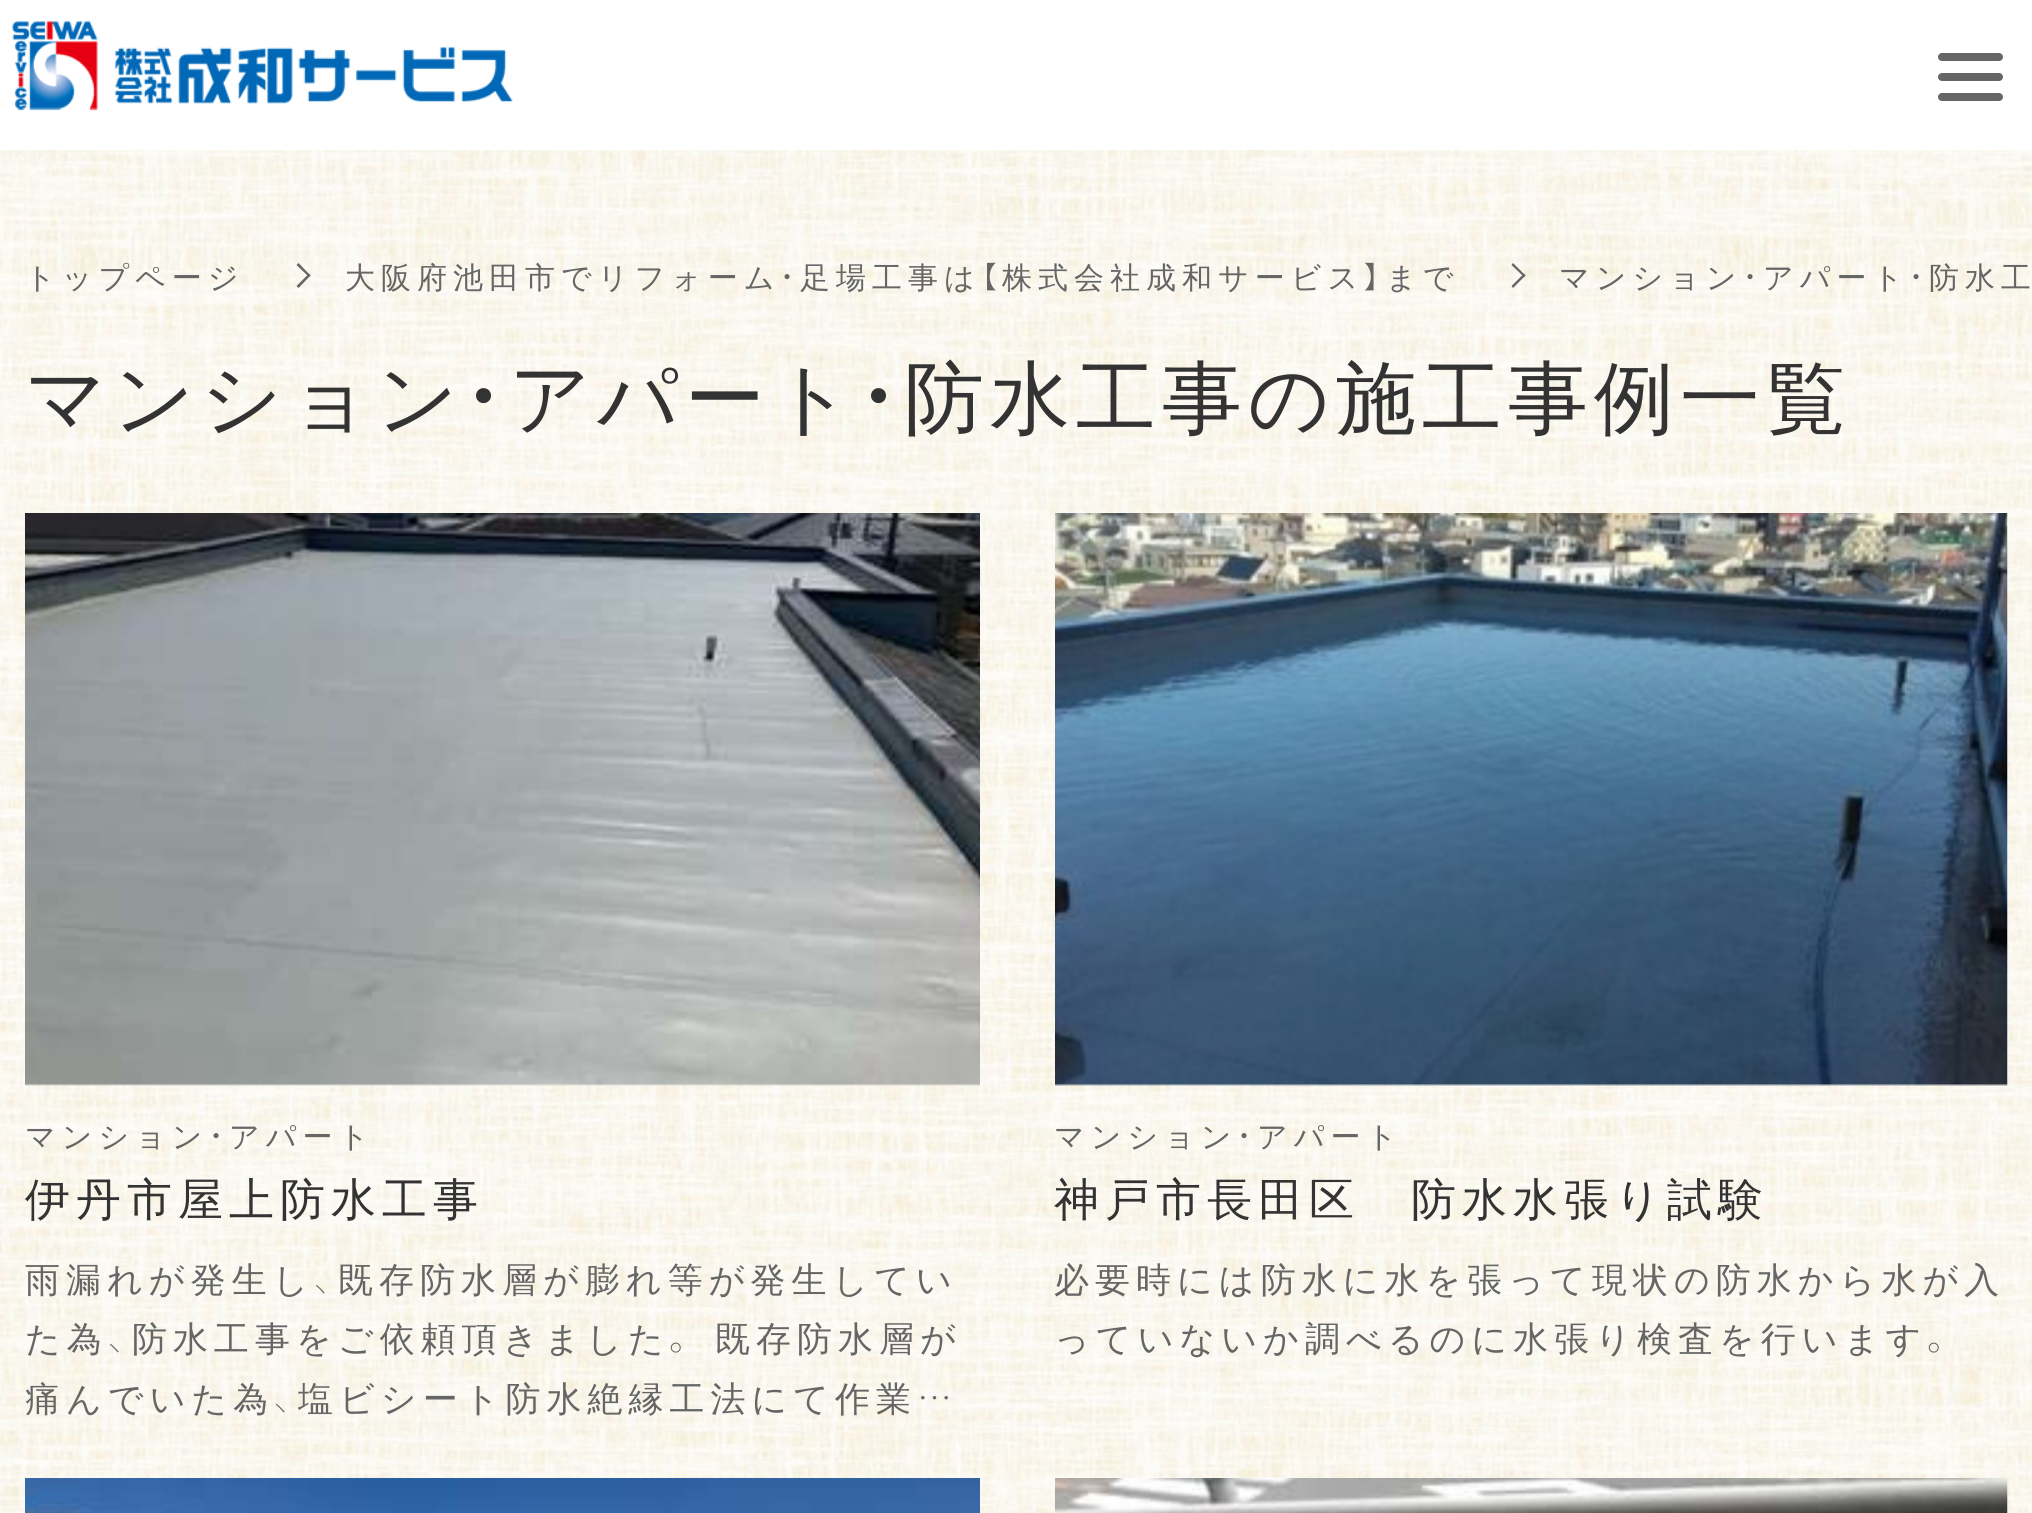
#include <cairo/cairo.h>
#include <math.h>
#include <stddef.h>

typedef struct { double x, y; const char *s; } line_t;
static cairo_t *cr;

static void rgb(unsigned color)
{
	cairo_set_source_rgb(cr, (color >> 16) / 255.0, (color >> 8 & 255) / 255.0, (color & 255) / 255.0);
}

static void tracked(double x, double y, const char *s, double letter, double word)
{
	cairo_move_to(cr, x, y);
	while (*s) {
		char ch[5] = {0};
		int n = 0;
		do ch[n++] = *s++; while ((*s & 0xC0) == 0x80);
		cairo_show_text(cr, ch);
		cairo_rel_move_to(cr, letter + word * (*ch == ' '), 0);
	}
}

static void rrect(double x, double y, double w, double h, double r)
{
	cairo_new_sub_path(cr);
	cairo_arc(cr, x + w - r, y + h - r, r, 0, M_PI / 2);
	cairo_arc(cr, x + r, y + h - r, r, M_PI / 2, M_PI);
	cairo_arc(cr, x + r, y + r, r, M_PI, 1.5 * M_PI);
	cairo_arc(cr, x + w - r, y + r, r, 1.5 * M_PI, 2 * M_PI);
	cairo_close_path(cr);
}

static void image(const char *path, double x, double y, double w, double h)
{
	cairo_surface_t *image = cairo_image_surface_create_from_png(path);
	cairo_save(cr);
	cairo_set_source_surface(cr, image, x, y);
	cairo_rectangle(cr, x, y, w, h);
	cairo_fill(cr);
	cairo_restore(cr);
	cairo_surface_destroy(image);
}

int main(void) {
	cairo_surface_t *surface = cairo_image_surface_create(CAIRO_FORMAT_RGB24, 2032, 1513);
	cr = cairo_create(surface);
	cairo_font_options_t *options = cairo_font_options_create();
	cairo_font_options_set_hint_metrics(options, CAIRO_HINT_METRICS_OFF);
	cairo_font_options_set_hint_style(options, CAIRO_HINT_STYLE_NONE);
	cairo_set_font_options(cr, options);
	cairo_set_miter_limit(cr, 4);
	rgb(0xffffff);
	cairo_paint(cr);
	image("img/1.png", 12, 21, 501, 90);
	rgb(0x666666);
	rrect(1938, 53, 65, 8, 4);
	cairo_fill(cr);
	rrect(1938, 73, 65, 8, 4);
	cairo_fill(cr);
	rrect(1938, 93, 65, 8, 4);
	cairo_fill(cr);
	image("img/2.png", 0, 150, 2032, 1363);
	cairo_new_path(cr);
	cairo_move_to(cr, 309, 277);
	cairo_line_to(cr, 296.5, 265);
	cairo_line_to(cr, 298.5, 263);
	cairo_line_to(cr, 310.5, 275.5);
	cairo_close_path(cr);
	cairo_fill(cr);
	cairo_new_path(cr);
	cairo_move_to(cr, 298.5, 288);
	cairo_line_to(cr, 296.5, 286);
	cairo_line_to(cr, 309, 273.5);
	cairo_line_to(cr, 310.5, 275.5);
	cairo_close_path(cr);
	cairo_fill(cr);
	cairo_new_path(cr);
	cairo_move_to(cr, 1524, 277);
	cairo_line_to(cr, 1511.5, 265);
	cairo_line_to(cr, 1513, 263);
	cairo_line_to(cr, 1525.5, 275.5);
	cairo_close_path(cr);
	cairo_fill(cr);
	cairo_new_path(cr);
	cairo_move_to(cr, 1513, 288);
	cairo_line_to(cr, 1511.5, 286);
	cairo_line_to(cr, 1524, 273.5);
	cairo_line_to(cr, 1525.5, 275.5);
	cairo_close_path(cr);
	cairo_fill(cr);
	image("img/3.png", 25, 513, 955, 573);
	image("img/4.png", 1055, 513, 953, 573);
	image("img/5.png", 25, 1478, 955, 35);
	image("img/6.png", 1055, 1478, 953, 35);
	cairo_select_font_face(cr, "WenQuanYi Zen Hei Medium", CAIRO_FONT_SLANT_NORMAL, CAIRO_FONT_WEIGHT_NORMAL);
	cairo_set_font_size(cr, 30);
	tracked(25, 288, "トップページ", 6, 0);
	tracked(345, 288, "大阪府池田市でリフォーム", 6, 0);
	cairo_select_font_face(cr, "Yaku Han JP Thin", CAIRO_FONT_SLANT_NORMAL, CAIRO_FONT_WEIGHT_NORMAL);
	tracked(780, 288, "・", 6, 0);
	cairo_select_font_face(cr, "WenQuanYi Zen Hei Medium", CAIRO_FONT_SLANT_NORMAL, CAIRO_FONT_WEIGHT_NORMAL);
	tracked(800, 288, "足場工事は", 6, 0);
	cairo_select_font_face(cr, "Yaku Han JP Thin", CAIRO_FONT_SLANT_NORMAL, CAIRO_FONT_WEIGHT_NORMAL);
	tracked(981, 288, "【", 6, 0);
	cairo_select_font_face(cr, "WenQuanYi Zen Hei Medium", CAIRO_FONT_SLANT_NORMAL, CAIRO_FONT_WEIGHT_NORMAL);
	tracked(1002, 288, "株式会社成和サービス", 6, 0);
	cairo_select_font_face(cr, "Yaku Han JP Thin", CAIRO_FONT_SLANT_NORMAL, CAIRO_FONT_WEIGHT_NORMAL);
	tracked(1364, 288, "】", 6, 0);
	cairo_select_font_face(cr, "WenQuanYi Zen Hei Medium", CAIRO_FONT_SLANT_NORMAL, CAIRO_FONT_WEIGHT_NORMAL);
	tracked(1386, 288, "まで", 6, 0);
	tracked(1559, 288, "マンション", 6, 0);
	cairo_select_font_face(cr, "Yaku Han JP Thin", CAIRO_FONT_SLANT_NORMAL, CAIRO_FONT_WEIGHT_NORMAL);
	tracked(1743, 288, "・", 6, 0);
	cairo_select_font_face(cr, "WenQuanYi Zen Hei Medium", CAIRO_FONT_SLANT_NORMAL, CAIRO_FONT_WEIGHT_NORMAL);
	tracked(1763, 288, "アパート", 6, 0);
	cairo_select_font_face(cr, "Yaku Han JP Thin", CAIRO_FONT_SLANT_NORMAL, CAIRO_FONT_WEIGHT_NORMAL);
	tracked(1909, 288, "・", 6, 0);
	cairo_select_font_face(cr, "WenQuanYi Zen Hei Medium", CAIRO_FONT_SLANT_NORMAL, CAIRO_FONT_WEIGHT_NORMAL);
	tracked(1929, 288, "防水工", 6, 0);
	cairo_set_font_size(cr, 80);
	rgb(0x333333);
	tracked(25, 426, "マンション", 6, 0);
	cairo_select_font_face(cr, "Yaku Han JP Light", CAIRO_FONT_SLANT_NORMAL, CAIRO_FONT_WEIGHT_NORMAL);
	tracked(464, 426, "・", 6, 0);
	cairo_select_font_face(cr, "WenQuanYi Zen Hei Medium", CAIRO_FONT_SLANT_NORMAL, CAIRO_FONT_WEIGHT_NORMAL);
	tracked(509, 426, "アパート", 6, 0);
	cairo_select_font_face(cr, "Yaku Han JP Light", CAIRO_FONT_SLANT_NORMAL, CAIRO_FONT_WEIGHT_NORMAL);
	tracked(859, 426, "・", 6, 0);
	cairo_select_font_face(cr, "WenQuanYi Zen Hei Medium", CAIRO_FONT_SLANT_NORMAL, CAIRO_FONT_WEIGHT_NORMAL);
	tracked(904, 426, "防水工事の施工事例一覧", 6, 0);
	cairo_set_font_size(cr, 30);
	rgb(0x666666);
	tracked(25, 1147, "マンション", 6, 0);
	cairo_select_font_face(cr, "Yaku Han JP Thin", CAIRO_FONT_SLANT_NORMAL, CAIRO_FONT_WEIGHT_NORMAL);
	tracked(209, 1147, "・", 6, 0);
	cairo_select_font_face(cr, "WenQuanYi Zen Hei Medium", CAIRO_FONT_SLANT_NORMAL, CAIRO_FONT_WEIGHT_NORMAL);
	tracked(229, 1147, "アパート", 6, 0);
	cairo_set_font_size(cr, 45);
	rgb(0x333333);
	tracked(25, 1215, "伊丹市屋上防水工事", 6, 0);
	cairo_set_font_size(cr, 35);
	rgb(0x666666);
	tracked(25, 1292, "雨漏れが発生し", 6, 0);
	cairo_select_font_face(cr, "Yaku Han JP Thin", CAIRO_FONT_SLANT_NORMAL, CAIRO_FONT_WEIGHT_NORMAL);
	tracked(314, 1292, "、", 6, 0);
	cairo_select_font_face(cr, "WenQuanYi Zen Hei Medium", CAIRO_FONT_SLANT_NORMAL, CAIRO_FONT_WEIGHT_NORMAL);
	tracked(338, 1292, "既存防水層が膨れ等が発生してい", 6, 0);
	tracked(25, 1351, "た為", 6, 0);
	cairo_select_font_face(cr, "Yaku Han JP Thin", CAIRO_FONT_SLANT_NORMAL, CAIRO_FONT_WEIGHT_NORMAL);
	tracked(108, 1351, "、", 6, 0);
	cairo_select_font_face(cr, "WenQuanYi Zen Hei Medium", CAIRO_FONT_SLANT_NORMAL, CAIRO_FONT_WEIGHT_NORMAL);
	tracked(132, 1351, "防水工事をご依頼頂きました", 6, 0);
	cairo_select_font_face(cr, "Yaku Han JP Thin", CAIRO_FONT_SLANT_NORMAL, CAIRO_FONT_WEIGHT_NORMAL);
	tracked(669, 1351, "。", 6, 0);
	cairo_select_font_face(cr, "WenQuanYi Zen Hei Medium", CAIRO_FONT_SLANT_NORMAL, CAIRO_FONT_WEIGHT_NORMAL);
	{
		static const line_t items[] = {
			{715, 1351, "既存防水層が"},
			{25, 1411, "痛んでいた為"},
			{298, 1411, "塩ビシート防水絶縁工法にて作業"},
		};
		for (size_t i = 0; i < sizeof items / sizeof *items; i++) {
			tracked(items[i].x, items[i].y, items[i].s, 6, 0);
		}
	}
	cairo_select_font_face(cr, "Yaku Han JP Thin", CAIRO_FONT_SLANT_NORMAL, CAIRO_FONT_WEIGHT_NORMAL);
	tracked(917, 1411, "…", 6, 0);
	tracked(274, 1411, "、", 6, 0);
	cairo_select_font_face(cr, "WenQuanYi Zen Hei Medium", CAIRO_FONT_SLANT_NORMAL, CAIRO_FONT_WEIGHT_NORMAL);
	cairo_set_font_size(cr, 30);
	tracked(1054, 1147, "マンション", 6, 0);
	cairo_select_font_face(cr, "Yaku Han JP Thin", CAIRO_FONT_SLANT_NORMAL, CAIRO_FONT_WEIGHT_NORMAL);
	tracked(1237, 1147, "・", 6, 0);
	cairo_select_font_face(cr, "WenQuanYi Zen Hei Medium", CAIRO_FONT_SLANT_NORMAL, CAIRO_FONT_WEIGHT_NORMAL);
	tracked(1257, 1147, "アパート", 6, 0);
	cairo_set_font_size(cr, 45);
	rgb(0x333333);
	tracked(1054, 1215, "神戸市長田区　防水水張り試験", 6, 0);
	cairo_set_font_size(cr, 35);
	rgb(0x666666);
	tracked(1054, 1292, "必要時には防水に水を張って現状の防水から水が入", 6, 0);
	tracked(1054, 1351, "っていないか調べるのに水張り検査を行います", 6, 0);
	cairo_select_font_face(cr, "Yaku Han JP Thin", CAIRO_FONT_SLANT_NORMAL, CAIRO_FONT_WEIGHT_NORMAL);
	tracked(1927, 1351, "。", 6, 0);
	cairo_surface_write_to_png(surface, "page.png");
	cairo_font_options_destroy(options);
	cairo_destroy(cr);
	cairo_surface_destroy(surface);
	return 0;
}
